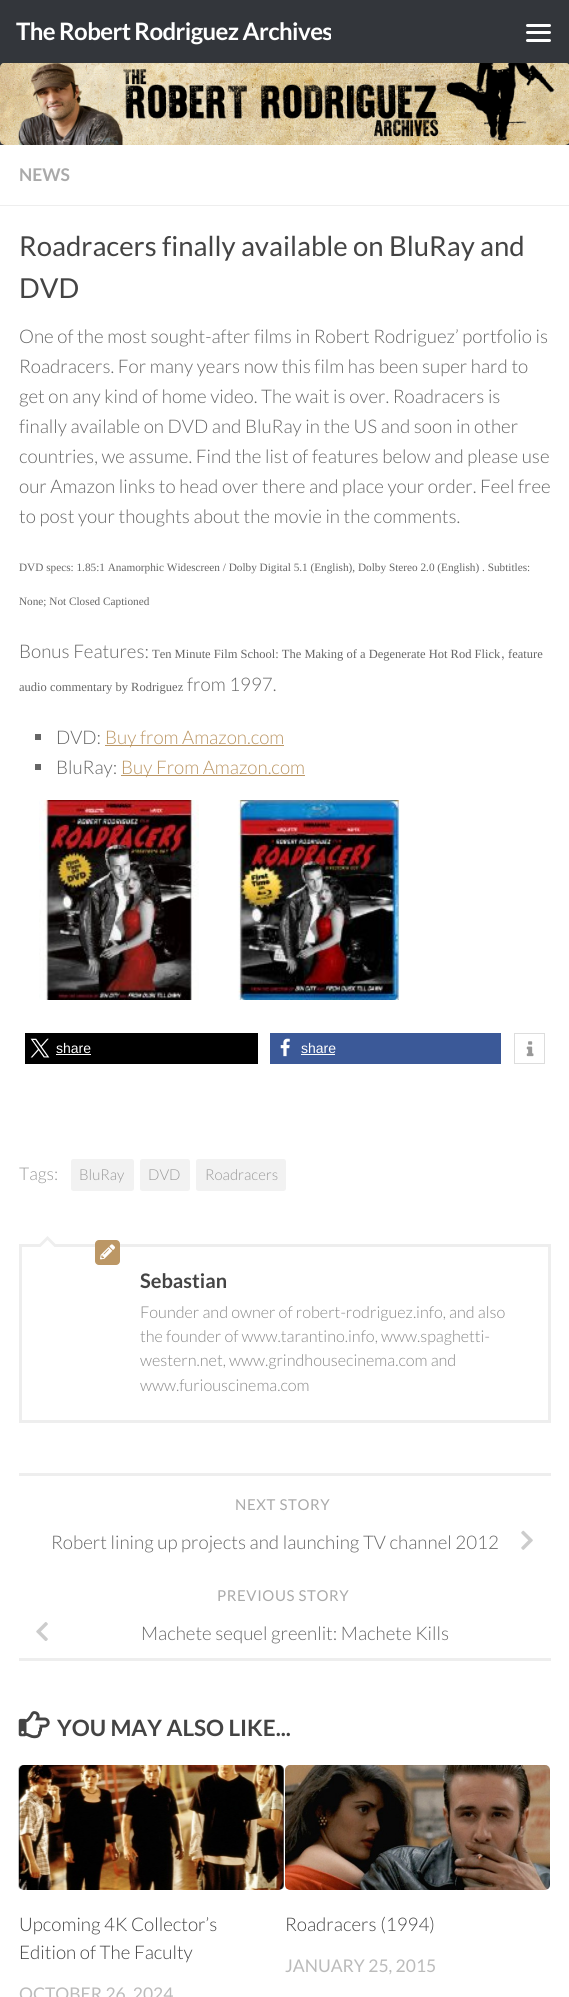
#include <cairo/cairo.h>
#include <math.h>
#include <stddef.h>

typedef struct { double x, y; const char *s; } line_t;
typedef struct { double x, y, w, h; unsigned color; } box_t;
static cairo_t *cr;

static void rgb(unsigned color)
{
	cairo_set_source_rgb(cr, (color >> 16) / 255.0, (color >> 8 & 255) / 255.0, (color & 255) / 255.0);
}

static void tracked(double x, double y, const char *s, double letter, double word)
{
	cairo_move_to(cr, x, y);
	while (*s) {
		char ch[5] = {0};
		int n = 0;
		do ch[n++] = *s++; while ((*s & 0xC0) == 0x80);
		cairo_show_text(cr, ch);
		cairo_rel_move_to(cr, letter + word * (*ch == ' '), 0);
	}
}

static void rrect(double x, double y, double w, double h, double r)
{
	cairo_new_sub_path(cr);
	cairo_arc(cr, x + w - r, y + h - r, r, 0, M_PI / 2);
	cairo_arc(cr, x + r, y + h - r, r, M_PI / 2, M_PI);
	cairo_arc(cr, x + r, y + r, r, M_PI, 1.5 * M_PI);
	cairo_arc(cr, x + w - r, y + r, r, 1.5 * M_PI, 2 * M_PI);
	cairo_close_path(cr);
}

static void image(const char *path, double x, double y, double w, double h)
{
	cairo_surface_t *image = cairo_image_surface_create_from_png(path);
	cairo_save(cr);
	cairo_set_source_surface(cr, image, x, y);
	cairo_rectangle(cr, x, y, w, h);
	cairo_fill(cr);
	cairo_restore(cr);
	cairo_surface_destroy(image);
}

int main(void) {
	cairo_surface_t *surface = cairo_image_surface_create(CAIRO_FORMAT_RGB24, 569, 1997);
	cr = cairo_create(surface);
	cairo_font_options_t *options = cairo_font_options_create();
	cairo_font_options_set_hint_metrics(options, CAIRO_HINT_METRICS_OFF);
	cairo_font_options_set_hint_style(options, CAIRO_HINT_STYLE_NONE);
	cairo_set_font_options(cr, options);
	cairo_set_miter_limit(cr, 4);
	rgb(0xffffff);
	cairo_paint(cr);
	rgb(0x33363b);
	cairo_rectangle(cr, 0, 0, 569, 145);
	cairo_fill(cr);
	rgb(0xffffff);
	rrect(526, 24, 25, 3, 1.5);
	cairo_fill(cr);
	rrect(526, 31, 25, 3, 1.5);
	cairo_fill(cr);
	rrect(526, 39, 25, 3, 1.5);
	cairo_fill(cr);
	image("img/1.png", 0, 63, 569, 82);
	{
		static const box_t items[] = {
			{0, 205, 569, 1, 0xeeeeee},
			{35, 734, 6, 6, 0x666666},
			{105, 745, 179, 1, 0xbc9765},
			{35, 764, 6, 6, 0x666666},
			{121, 775, 184, 1, 0xbc9765},
		};
		for (size_t i = 0; i < sizeof items / sizeof *items; i++) {
			rgb(items[i].color);
			cairo_rectangle(cr, items[i].x, items[i].y, items[i].w, items[i].h);
			cairo_fill(cr);
		}
	}
	image("img/2.png", 39, 800, 160, 200);
	image("img/3.png", 238, 800, 162, 200);
	rgb(0x000000);
	cairo_rectangle(cr, 25, 1033, 233, 31);
	cairo_fill(cr);
	image("img/4.png", 30, 1038, 20, 20);
	rgb(0xffffff);
	cairo_rectangle(cr, 56, 1054, 35, 1);
	cairo_fill(cr);
	rgb(0x3b5998);
	cairo_rectangle(cr, 270, 1033, 231, 31);
	cairo_fill(cr);
	image("img/5.png", 280, 1038, 10, 19);
	rgb(0xffffff);
	cairo_rectangle(cr, 301, 1054, 34, 1);
	cairo_fill(cr);
	cairo_rectangle(cr, 514.5, 1033.5, 30, 30);
	rgb(0xdddddd);
	cairo_set_line_width(cr, 1);
	cairo_stroke(cr);
	image("img/6.png", 526, 1041, 8, 16);
	rgb(0xf2f2f2);
	rrect(71, 1159, 63, 32, 2.5);
	cairo_fill(cr);
	rrect(140, 1159, 50, 32, 2.5);
	cairo_fill(cr);
	rrect(196, 1159, 90, 32, 2.5);
	cairo_fill(cr);
	cairo_rectangle(cr, 20.5, 1245.5, 529, 176);
	rgb(0xeeeeee);
	cairo_set_line_width(cr, 3);
	cairo_stroke(cr);
	cairo_new_path(cr);
	cairo_move_to(cr, 57.5, 1246);
	cairo_line_to(cr, 37.5, 1246);
	cairo_line_to(cr, 47.5, 1236);
	cairo_close_path(cr);
	cairo_fill(cr);
	rgb(0xffffff);
	cairo_new_path(cr);
	cairo_move_to(cr, 55, 1247.5);
	cairo_line_to(cr, 40, 1247.5);
	cairo_line_to(cr, 47.5, 1240);
	cairo_close_path(cr);
	cairo_fill(cr);
	rgb(0xbc9765);
	rrect(95, 1240, 25, 25, 4);
	cairo_fill(cr);
	image("img/7.png", 100, 1244, 15, 16);
	rgb(0xeeeeee);
	cairo_rectangle(cr, 19, 1473, 532, 3);
	cairo_fill(cr);
	cairo_rectangle(cr, 19, 1658, 532, 3);
	cairo_fill(cr);
	image("img/8.png", 521, 1530, 12, 20);
	image("img/9.png", 36, 1622, 12, 19);
	image("img/10.png", 18, 1711, 32, 28);
	image("img/11.png", 18, 1765, 266, 125);
	image("img/12.png", 285, 1765, 265, 125);
	cairo_save(cr);
	cairo_rectangle(cr, 16, 0, 315, 63);
	cairo_clip(cr);
	cairo_select_font_face(cr, "Lato", CAIRO_FONT_SLANT_NORMAL, CAIRO_FONT_WEIGHT_BOLD);
	cairo_set_font_size(cr, 24);
	rgb(0xffffff);
	tracked(16, 40, "The Robert Rodriguez Archives", -0.6, 0);
	cairo_restore(cr);
	cairo_select_font_face(cr, "Lato", CAIRO_FONT_SLANT_NORMAL, CAIRO_FONT_WEIGHT_BOLD);
	cairo_set_font_size(cr, 17.5);
	rgb(0xaaaaaa);
	cairo_move_to(cr, 19, 181);
	cairo_show_text(cr, "NEWS");
	cairo_select_font_face(cr, "Lato", CAIRO_FONT_SLANT_NORMAL, CAIRO_FONT_WEIGHT_NORMAL);
	cairo_set_font_size(cr, 27.5);
	rgb(0x444444);
	cairo_move_to(cr, 19, 256);
	cairo_show_text(cr, "Roadracers finally available on BluRay and");
	cairo_move_to(cr, 19, 298);
	cairo_show_text(cr, "DVD");
	cairo_select_font_face(cr, "Lato Light", CAIRO_FONT_SLANT_NORMAL, CAIRO_FONT_WEIGHT_NORMAL);
	cairo_set_font_size(cr, 18.75);
	rgb(0x666666);
	{
		static const line_t items[] = {
			{19, 343, "One of the most sought-after films in Robert Rodriguez’ portfolio is"},
			{19, 373, "Roadracers. For many years now this film has been super hard to"},
			{19, 403, "get on any kind of home video. The wait is over. Roadracers is"},
			{19, 433, "finally available on DVD and BluRay in the US and soon in other"},
			{19, 463, "countries, we assume. Find the list of features below and please use"},
			{19, 493, "our Amazon links to head over there and place your order. Feel free"},
			{19, 523, "to post your thoughts about the movie in the comments."},
		};
		for (size_t i = 0; i < sizeof items / sizeof *items; i++) {
			cairo_move_to(cr, items[i].x, items[i].y);
			cairo_show_text(cr, items[i].s);
		}
	}
	cairo_select_font_face(cr, "Liberation Serif", CAIRO_FONT_SLANT_NORMAL, CAIRO_FONT_WEIGHT_NORMAL);
	cairo_set_font_size(cr, 11.25);
	cairo_move_to(cr, 19, 571);
	cairo_show_text(cr, "DVD specs: 1.85:1 Anamorphic Widescreen / Dolby Digital 5.1 (English), Dolby Stereo 2.0 (English) . Subtitles:");
	cairo_move_to(cr, 19, 605);
	cairo_show_text(cr, "None; Not Closed Captioned");
	cairo_select_font_face(cr, "Lato Light", CAIRO_FONT_SLANT_NORMAL, CAIRO_FONT_WEIGHT_NORMAL);
	cairo_set_font_size(cr, 18.75);
	cairo_move_to(cr, 19, 658);
	cairo_show_text(cr, "Bonus Features:");
	cairo_select_font_face(cr, "Liberation Serif", CAIRO_FONT_SLANT_NORMAL, CAIRO_FONT_WEIGHT_NORMAL);
	cairo_set_font_size(cr, 12.5);
	cairo_move_to(cr, 152, 658);
	cairo_show_text(cr, "Ten Minute Film School: The Making of a Degenerate Hot Rod Flick");
	cairo_select_font_face(cr, "Lato Light", CAIRO_FONT_SLANT_NORMAL, CAIRO_FONT_WEIGHT_NORMAL);
	cairo_set_font_size(cr, 18.75);
	cairo_move_to(cr, 501, 658);
	cairo_show_text(cr, ",");
	cairo_select_font_face(cr, "Liberation Serif", CAIRO_FONT_SLANT_NORMAL, CAIRO_FONT_WEIGHT_NORMAL);
	cairo_set_font_size(cr, 12.5);
	cairo_move_to(cr, 508, 658);
	cairo_show_text(cr, "feature");
	cairo_move_to(cr, 19, 691);
	cairo_show_text(cr, "audio commentary by Rodriguez");
	cairo_select_font_face(cr, "Lato Light", CAIRO_FONT_SLANT_NORMAL, CAIRO_FONT_WEIGHT_NORMAL);
	cairo_set_font_size(cr, 18.75);
	cairo_move_to(cr, 187, 691);
	cairo_show_text(cr, "from 1997.");
	cairo_move_to(cr, 56, 744);
	cairo_show_text(cr, "DVD:");
	rgb(0xbc9765);
	cairo_move_to(cr, 105, 744);
	cairo_show_text(cr, "Buy from Amazon.com");
	rgb(0x666666);
	cairo_move_to(cr, 56, 774);
	cairo_show_text(cr, "BluRay:");
	rgb(0xbc9765);
	cairo_move_to(cr, 121, 774);
	cairo_show_text(cr, "Buy From Amazon.com");
	cairo_select_font_face(cr, "Liberation Sans", CAIRO_FONT_SLANT_NORMAL, CAIRO_FONT_WEIGHT_NORMAL);
	cairo_set_font_size(cr, 14);
	rgb(0xffffff);
	cairo_move_to(cr, 56, 1053);
	cairo_show_text(cr, "share");
	cairo_move_to(cr, 301, 1053);
	cairo_show_text(cr, "share");
	cairo_select_font_face(cr, "Lato Light", CAIRO_FONT_SLANT_NORMAL, CAIRO_FONT_WEIGHT_NORMAL);
	cairo_set_font_size(cr, 17.5);
	rgb(0x999999);
	cairo_move_to(cr, 19, 1180);
	cairo_show_text(cr, "Tags:");
	cairo_set_font_size(cr, 15);
	{
		static const line_t items[] = {
			{79, 1180, "BluRay"},
			{148, 1180, "DVD"},
			{205, 1180, "Roadracers"},
		};
		for (size_t i = 0; i < sizeof items / sizeof *items; i++) {
			cairo_move_to(cr, items[i].x, items[i].y);
			cairo_show_text(cr, items[i].s);
		}
	}
	cairo_select_font_face(cr, "Lato", CAIRO_FONT_SLANT_NORMAL, CAIRO_FONT_WEIGHT_BOLD);
	cairo_set_font_size(cr, 20);
	rgb(0x444444);
	cairo_move_to(cr, 140, 1288);
	cairo_show_text(cr, "Sebastian");
	cairo_select_font_face(cr, "Lato Light", CAIRO_FONT_SLANT_NORMAL, CAIRO_FONT_WEIGHT_NORMAL);
	cairo_set_font_size(cr, 16.25);
	rgb(0x888888);
	{
		static const line_t items[] = {
			{140, 1318, "Founder and owner of robert-rodriguez.info, and also"},
			{140, 1342, "the founder of www.tarantino.info, www.spaghetti-"},
			{140, 1366, "western.net, www.grindhousecinema.com and"},
			{140, 1391, "www.furiouscinema.com"},
		};
		for (size_t i = 0; i < sizeof items / sizeof *items; i++) {
			cairo_move_to(cr, items[i].x, items[i].y);
			cairo_show_text(cr, items[i].s);
		}
	}
	cairo_select_font_face(cr, "Lato", CAIRO_FONT_SLANT_NORMAL, CAIRO_FONT_WEIGHT_NORMAL);
	cairo_set_font_size(cr, 15);
	rgb(0xaaaaaa);
	tracked(235, 1510, "NEXT STORY", 0.6, 0);
	cairo_select_font_face(cr, "Lato Light", CAIRO_FONT_SLANT_NORMAL, CAIRO_FONT_WEIGHT_NORMAL);
	cairo_set_font_size(cr, 18.75);
	rgb(0x666666);
	cairo_move_to(cr, 51, 1549);
	cairo_show_text(cr, "Robert lining up projects and launching TV channel 2012");
	cairo_select_font_face(cr, "Lato", CAIRO_FONT_SLANT_NORMAL, CAIRO_FONT_WEIGHT_NORMAL);
	cairo_set_font_size(cr, 15);
	rgb(0xaaaaaa);
	tracked(217, 1601, "PREVIOUS STORY", 0.6, 0);
	cairo_select_font_face(cr, "Lato Light", CAIRO_FONT_SLANT_NORMAL, CAIRO_FONT_WEIGHT_NORMAL);
	cairo_set_font_size(cr, 18.75);
	rgb(0x666666);
	cairo_move_to(cr, 141, 1640);
	cairo_show_text(cr, "Machete sequel greenlit: Machete Kills");
	cairo_select_font_face(cr, "Lato", CAIRO_FONT_SLANT_NORMAL, CAIRO_FONT_WEIGHT_BOLD);
	cairo_set_font_size(cr, 22.5);
	rgb(0x444444);
	cairo_move_to(cr, 57, 1736);
	cairo_show_text(cr, "YOU MAY ALSO LIKE...");
	cairo_select_font_face(cr, "Lato Light", CAIRO_FONT_SLANT_NORMAL, CAIRO_FONT_WEIGHT_NORMAL);
	cairo_set_font_size(cr, 18.75);
	cairo_move_to(cr, 19, 1931);
	cairo_show_text(cr, "Upcoming 4K Collector’s");
	cairo_move_to(cr, 19, 1959);
	cairo_show_text(cr, "Edition of The Faculty");
	cairo_select_font_face(cr, "Lato", CAIRO_FONT_SLANT_NORMAL, CAIRO_FONT_WEIGHT_NORMAL);
	cairo_set_font_size(cr, 17.5);
	rgb(0xbbbbbb);
	cairo_move_to(cr, 19, 2000);
	cairo_show_text(cr, "OCTOBER 26, 2024");
	cairo_select_font_face(cr, "Lato Light", CAIRO_FONT_SLANT_NORMAL, CAIRO_FONT_WEIGHT_NORMAL);
	cairo_set_font_size(cr, 18.75);
	rgb(0x444444);
	cairo_move_to(cr, 285, 1931);
	cairo_show_text(cr, "Roadracers (1994)");
	cairo_select_font_face(cr, "Lato", CAIRO_FONT_SLANT_NORMAL, CAIRO_FONT_WEIGHT_NORMAL);
	cairo_set_font_size(cr, 17.5);
	rgb(0xbbbbbb);
	cairo_move_to(cr, 285, 1972);
	cairo_show_text(cr, "JANUARY 25, 2015");
	cairo_surface_write_to_png(surface, "page.png");
	cairo_font_options_destroy(options);
	cairo_destroy(cr);
	cairo_surface_destroy(surface);
	return 0;
}
